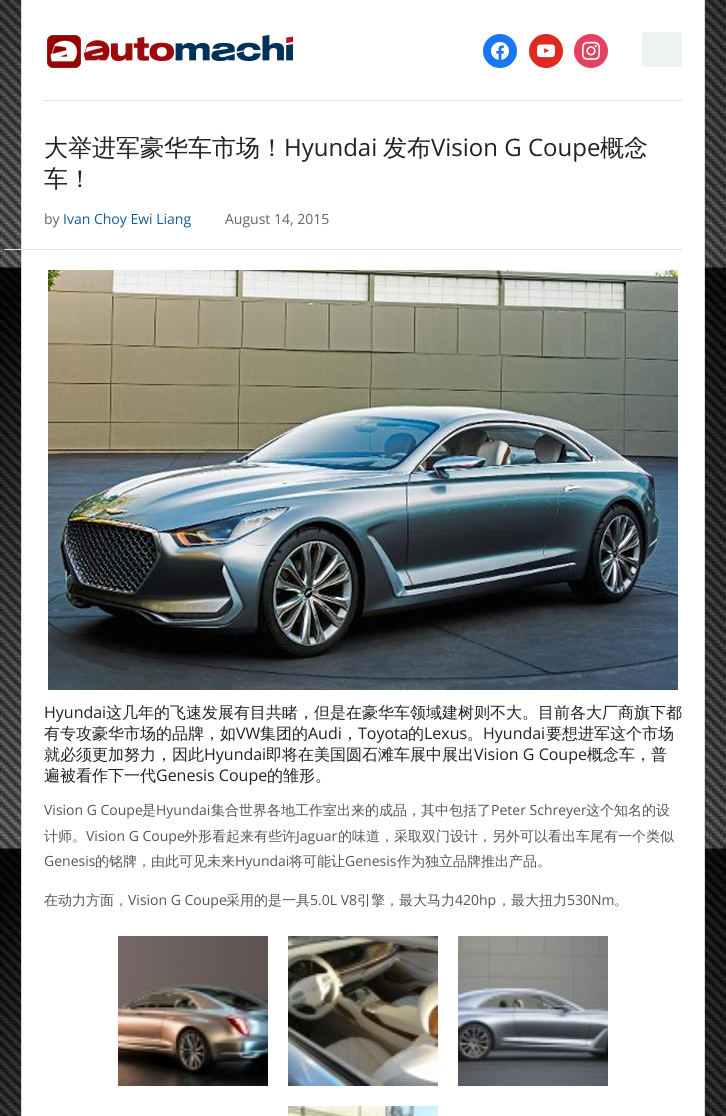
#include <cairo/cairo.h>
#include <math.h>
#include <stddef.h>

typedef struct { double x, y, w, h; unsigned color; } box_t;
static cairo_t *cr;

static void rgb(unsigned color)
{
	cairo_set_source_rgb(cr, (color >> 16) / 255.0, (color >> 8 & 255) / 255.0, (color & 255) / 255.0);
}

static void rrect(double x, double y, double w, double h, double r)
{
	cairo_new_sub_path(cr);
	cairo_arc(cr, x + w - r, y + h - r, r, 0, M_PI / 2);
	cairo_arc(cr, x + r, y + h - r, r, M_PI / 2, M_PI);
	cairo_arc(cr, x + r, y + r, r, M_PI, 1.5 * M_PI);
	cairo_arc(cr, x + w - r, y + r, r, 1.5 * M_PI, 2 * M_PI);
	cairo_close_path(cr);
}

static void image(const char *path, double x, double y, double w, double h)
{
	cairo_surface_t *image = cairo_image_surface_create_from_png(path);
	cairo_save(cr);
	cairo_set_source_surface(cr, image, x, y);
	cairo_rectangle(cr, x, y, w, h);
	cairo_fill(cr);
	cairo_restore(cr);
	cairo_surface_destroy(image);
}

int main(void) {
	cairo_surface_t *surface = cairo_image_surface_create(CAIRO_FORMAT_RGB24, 726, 1116);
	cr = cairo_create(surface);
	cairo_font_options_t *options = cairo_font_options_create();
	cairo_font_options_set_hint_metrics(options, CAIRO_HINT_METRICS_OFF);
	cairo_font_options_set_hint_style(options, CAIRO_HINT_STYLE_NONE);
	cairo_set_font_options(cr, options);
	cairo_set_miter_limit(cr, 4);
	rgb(0xffffff);
	cairo_paint(cr);
	image("img/1.png", 0, 0, 726, 1116);
	{
		static const box_t items[] = {
			{22, 0, 682, 1116, 0xffffff},
			{704, 0, 1, 1116, 0xdadedf},
			{21, 0, 1, 1116, 0xdadedf},
			{44, 100, 638, 1, 0xdfe2e3},
		};
		for (size_t i = 0; i < sizeof items / sizeof *items; i++) {
			rgb(items[i].color);
			cairo_rectangle(cr, items[i].x, items[i].y, items[i].w, items[i].h);
			cairo_fill(cr);
		}
	}
	rgb(0x1877f2);
	cairo_arc(cr, 500, 51, 17, 0, 2 * M_PI);
	cairo_fill(cr);
	image("img/2.png", 491, 42, 18, 18);
	rgb(0xe02a20);
	cairo_arc(cr, 546, 51, 17, 0, 2 * M_PI);
	cairo_fill(cr);
	image("img/3.png", 537, 44, 19, 14);
	rgb(0xe4405f);
	cairo_arc(cr, 591, 51, 17, 0, 2 * M_PI);
	cairo_fill(cr);
	image("img/4.png", 582, 41, 18, 19);
	rgb(0xeef2f2);
	rrect(642, 32, 40, 35, 3);
	cairo_fill(cr);
	image("img/5.png", 47, 35, 246, 33);
	rgb(0xe5e5e5);
	cairo_rectangle(cr, 4, 249, 678, 1);
	cairo_fill(cr);
	image("img/6.png", 48, 270, 630, 420);
	image("img/7.png", 118, 936, 150, 150);
	image("img/8.png", 288, 936, 150, 150);
	image("img/9.png", 458, 936, 150, 150);
	image("img/10.png", 288, 1106, 150, 10);
	cairo_select_font_face(cr, "WenQuanYi Zen Hei Medium", CAIRO_FONT_SLANT_NORMAL, CAIRO_FONT_WEIGHT_NORMAL);
	cairo_set_font_size(cr, 24);
	rgb(0x222222);
	cairo_move_to(cr, 44, 156);
	cairo_show_text(cr, "大举进军豪华车市场！");
	cairo_select_font_face(cr, "Open Sans", CAIRO_FONT_SLANT_NORMAL, CAIRO_FONT_WEIGHT_NORMAL);
	cairo_move_to(cr, 284, 156);
	cairo_show_text(cr, "Hyundai");
	cairo_select_font_face(cr, "WenQuanYi Zen Hei Medium", CAIRO_FONT_SLANT_NORMAL, CAIRO_FONT_WEIGHT_NORMAL);
	cairo_move_to(cr, 383, 156);
	cairo_show_text(cr, "发布");
	cairo_select_font_face(cr, "Open Sans", CAIRO_FONT_SLANT_NORMAL, CAIRO_FONT_WEIGHT_NORMAL);
	cairo_move_to(cr, 431, 156);
	cairo_show_text(cr, "Vision G Coupe");
	cairo_select_font_face(cr, "WenQuanYi Zen Hei Medium", CAIRO_FONT_SLANT_NORMAL, CAIRO_FONT_WEIGHT_NORMAL);
	cairo_move_to(cr, 600, 156);
	cairo_show_text(cr, "概念");
	cairo_move_to(cr, 44, 187);
	cairo_show_text(cr, "车！");
	cairo_select_font_face(cr, "Open Sans", CAIRO_FONT_SLANT_NORMAL, CAIRO_FONT_WEIGHT_NORMAL);
	cairo_set_font_size(cr, 14);
	rgb(0x656565);
	cairo_move_to(cr, 44, 224);
	cairo_show_text(cr, "by");
	rgb(0x0f5a99);
	cairo_move_to(cr, 63, 224);
	cairo_show_text(cr, "Ivan Choy Ewi Liang");
	rgb(0x656565);
	cairo_move_to(cr, 225, 224);
	cairo_show_text(cr, "August 14, 2015");
	cairo_set_font_size(cr, 16);
	rgb(0x222222);
	cairo_move_to(cr, 44, 718);
	cairo_show_text(cr, "Hyundai");
	cairo_select_font_face(cr, "WenQuanYi Zen Hei Medium", CAIRO_FONT_SLANT_NORMAL, CAIRO_FONT_WEIGHT_NORMAL);
	cairo_move_to(cr, 106, 718);
	cairo_show_text(cr, "这几年的飞速发展有目共睹，但是在豪华车领域建树则不大。目前各大厂商旗下都");
	cairo_move_to(cr, 44, 739);
	cairo_show_text(cr, "有专攻豪华市场的品牌，如");
	cairo_select_font_face(cr, "Open Sans", CAIRO_FONT_SLANT_NORMAL, CAIRO_FONT_WEIGHT_NORMAL);
	cairo_move_to(cr, 236, 739);
	cairo_show_text(cr, "VW");
	cairo_select_font_face(cr, "WenQuanYi Zen Hei Medium", CAIRO_FONT_SLANT_NORMAL, CAIRO_FONT_WEIGHT_NORMAL);
	cairo_move_to(cr, 260, 739);
	cairo_show_text(cr, "集团的");
	cairo_select_font_face(cr, "Open Sans", CAIRO_FONT_SLANT_NORMAL, CAIRO_FONT_WEIGHT_NORMAL);
	cairo_move_to(cr, 308, 739);
	cairo_show_text(cr, "Audi");
	cairo_select_font_face(cr, "WenQuanYi Zen Hei Medium", CAIRO_FONT_SLANT_NORMAL, CAIRO_FONT_WEIGHT_NORMAL);
	cairo_move_to(cr, 342, 739);
	cairo_show_text(cr, "，");
	cairo_select_font_face(cr, "Open Sans", CAIRO_FONT_SLANT_NORMAL, CAIRO_FONT_WEIGHT_NORMAL);
	cairo_move_to(cr, 358, 739);
	cairo_show_text(cr, "Toyota");
	cairo_select_font_face(cr, "WenQuanYi Zen Hei Medium", CAIRO_FONT_SLANT_NORMAL, CAIRO_FONT_WEIGHT_NORMAL);
	cairo_move_to(cr, 408, 739);
	cairo_show_text(cr, "的");
	cairo_select_font_face(cr, "Open Sans", CAIRO_FONT_SLANT_NORMAL, CAIRO_FONT_WEIGHT_NORMAL);
	cairo_move_to(cr, 424, 739);
	cairo_show_text(cr, "Lexus");
	cairo_select_font_face(cr, "WenQuanYi Zen Hei Medium", CAIRO_FONT_SLANT_NORMAL, CAIRO_FONT_WEIGHT_NORMAL);
	cairo_move_to(cr, 467, 739);
	cairo_show_text(cr, "。");
	cairo_select_font_face(cr, "Open Sans", CAIRO_FONT_SLANT_NORMAL, CAIRO_FONT_WEIGHT_NORMAL);
	cairo_move_to(cr, 483, 739);
	cairo_show_text(cr, "Hyundai");
	cairo_select_font_face(cr, "WenQuanYi Zen Hei Medium", CAIRO_FONT_SLANT_NORMAL, CAIRO_FONT_WEIGHT_NORMAL);
	cairo_move_to(cr, 546, 739);
	cairo_show_text(cr, "要想进军这个市场");
	cairo_move_to(cr, 44, 760);
	cairo_show_text(cr, "就必须更加努力，因此");
	cairo_select_font_face(cr, "Open Sans", CAIRO_FONT_SLANT_NORMAL, CAIRO_FONT_WEIGHT_NORMAL);
	cairo_move_to(cr, 204, 760);
	cairo_show_text(cr, "Hyundai");
	cairo_select_font_face(cr, "WenQuanYi Zen Hei Medium", CAIRO_FONT_SLANT_NORMAL, CAIRO_FONT_WEIGHT_NORMAL);
	cairo_move_to(cr, 266, 760);
	cairo_show_text(cr, "即将在美国圆石滩车展中展出");
	cairo_select_font_face(cr, "Open Sans", CAIRO_FONT_SLANT_NORMAL, CAIRO_FONT_WEIGHT_NORMAL);
	cairo_move_to(cr, 474, 760);
	cairo_show_text(cr, "Vision G Coupe");
	cairo_select_font_face(cr, "WenQuanYi Zen Hei Medium", CAIRO_FONT_SLANT_NORMAL, CAIRO_FONT_WEIGHT_NORMAL);
	cairo_move_to(cr, 587, 760);
	cairo_show_text(cr, "概念车，普");
	cairo_move_to(cr, 44, 781);
	cairo_show_text(cr, "遍被看作下一代");
	cairo_select_font_face(cr, "Open Sans", CAIRO_FONT_SLANT_NORMAL, CAIRO_FONT_WEIGHT_NORMAL);
	cairo_move_to(cr, 156, 781);
	cairo_show_text(cr, "Genesis Coupe");
	cairo_select_font_face(cr, "WenQuanYi Zen Hei Medium", CAIRO_FONT_SLANT_NORMAL, CAIRO_FONT_WEIGHT_NORMAL);
	cairo_move_to(cr, 267, 781);
	cairo_show_text(cr, "的雏形。");
	cairo_select_font_face(cr, "Open Sans", CAIRO_FONT_SLANT_NORMAL, CAIRO_FONT_WEIGHT_NORMAL);
	cairo_set_font_size(cr, 14);
	rgb(0x555555);
	cairo_move_to(cr, 44, 815);
	cairo_show_text(cr, "Vision G Coupe");
	cairo_select_font_face(cr, "WenQuanYi Zen Hei Medium", CAIRO_FONT_SLANT_NORMAL, CAIRO_FONT_WEIGHT_NORMAL);
	cairo_move_to(cr, 142, 815);
	cairo_show_text(cr, "是");
	cairo_select_font_face(cr, "Open Sans", CAIRO_FONT_SLANT_NORMAL, CAIRO_FONT_WEIGHT_NORMAL);
	cairo_move_to(cr, 156, 815);
	cairo_show_text(cr, "Hyundai");
	cairo_select_font_face(cr, "WenQuanYi Zen Hei Medium", CAIRO_FONT_SLANT_NORMAL, CAIRO_FONT_WEIGHT_NORMAL);
	cairo_move_to(cr, 211, 815);
	cairo_show_text(cr, "集合世界各地工作室出来的成品，其中包括了");
	cairo_select_font_face(cr, "Open Sans", CAIRO_FONT_SLANT_NORMAL, CAIRO_FONT_WEIGHT_NORMAL);
	cairo_move_to(cr, 491, 815);
	cairo_show_text(cr, "Peter Schreyer");
	cairo_select_font_face(cr, "WenQuanYi Zen Hei Medium", CAIRO_FONT_SLANT_NORMAL, CAIRO_FONT_WEIGHT_NORMAL);
	cairo_move_to(cr, 586, 815);
	cairo_show_text(cr, "这个知名的设");
	cairo_move_to(cr, 44, 841);
	cairo_show_text(cr, "计师。");
	cairo_select_font_face(cr, "Open Sans", CAIRO_FONT_SLANT_NORMAL, CAIRO_FONT_WEIGHT_NORMAL);
	cairo_move_to(cr, 86, 841);
	cairo_show_text(cr, "Vision G Coupe");
	cairo_select_font_face(cr, "WenQuanYi Zen Hei Medium", CAIRO_FONT_SLANT_NORMAL, CAIRO_FONT_WEIGHT_NORMAL);
	cairo_move_to(cr, 184, 841);
	cairo_show_text(cr, "外形看起来有些许");
	cairo_select_font_face(cr, "Open Sans", CAIRO_FONT_SLANT_NORMAL, CAIRO_FONT_WEIGHT_NORMAL);
	cairo_move_to(cr, 296, 841);
	cairo_show_text(cr, "Jaguar");
	cairo_select_font_face(cr, "WenQuanYi Zen Hei Medium", CAIRO_FONT_SLANT_NORMAL, CAIRO_FONT_WEIGHT_NORMAL);
	cairo_move_to(cr, 338, 841);
	cairo_show_text(cr, "的味道，采取双门设计，另外可以看出车尾有一个类似");
	cairo_select_font_face(cr, "Open Sans", CAIRO_FONT_SLANT_NORMAL, CAIRO_FONT_WEIGHT_NORMAL);
	cairo_move_to(cr, 44, 866);
	cairo_show_text(cr, "Genesis");
	cairo_select_font_face(cr, "WenQuanYi Zen Hei Medium", CAIRO_FONT_SLANT_NORMAL, CAIRO_FONT_WEIGHT_NORMAL);
	cairo_move_to(cr, 95, 866);
	cairo_show_text(cr, "的铭牌，由此可见未来");
	cairo_select_font_face(cr, "Open Sans", CAIRO_FONT_SLANT_NORMAL, CAIRO_FONT_WEIGHT_NORMAL);
	cairo_move_to(cr, 235, 866);
	cairo_show_text(cr, "Hyundai");
	cairo_select_font_face(cr, "WenQuanYi Zen Hei Medium", CAIRO_FONT_SLANT_NORMAL, CAIRO_FONT_WEIGHT_NORMAL);
	cairo_move_to(cr, 289, 866);
	cairo_show_text(cr, "将可能让");
	cairo_select_font_face(cr, "Open Sans", CAIRO_FONT_SLANT_NORMAL, CAIRO_FONT_WEIGHT_NORMAL);
	cairo_move_to(cr, 345, 866);
	cairo_show_text(cr, "Genesis");
	cairo_select_font_face(cr, "WenQuanYi Zen Hei Medium", CAIRO_FONT_SLANT_NORMAL, CAIRO_FONT_WEIGHT_NORMAL);
	cairo_move_to(cr, 397, 866);
	cairo_show_text(cr, "作为独立品牌推出产品。");
	cairo_move_to(cr, 44, 905);
	cairo_show_text(cr, "在动力方面，");
	cairo_select_font_face(cr, "Open Sans", CAIRO_FONT_SLANT_NORMAL, CAIRO_FONT_WEIGHT_NORMAL);
	cairo_move_to(cr, 128, 905);
	cairo_show_text(cr, "Vision G Coupe");
	cairo_select_font_face(cr, "WenQuanYi Zen Hei Medium", CAIRO_FONT_SLANT_NORMAL, CAIRO_FONT_WEIGHT_NORMAL);
	cairo_move_to(cr, 226, 905);
	cairo_show_text(cr, "采用的是一具");
	cairo_select_font_face(cr, "Open Sans", CAIRO_FONT_SLANT_NORMAL, CAIRO_FONT_WEIGHT_NORMAL);
	cairo_move_to(cr, 310, 905);
	cairo_show_text(cr, "5.0L V8");
	cairo_select_font_face(cr, "WenQuanYi Zen Hei Medium", CAIRO_FONT_SLANT_NORMAL, CAIRO_FONT_WEIGHT_NORMAL);
	cairo_move_to(cr, 357, 905);
	cairo_show_text(cr, "引擎，最大马力");
	cairo_select_font_face(cr, "Open Sans", CAIRO_FONT_SLANT_NORMAL, CAIRO_FONT_WEIGHT_NORMAL);
	cairo_move_to(cr, 455, 905);
	cairo_show_text(cr, "420hp");
	cairo_select_font_face(cr, "WenQuanYi Zen Hei Medium", CAIRO_FONT_SLANT_NORMAL, CAIRO_FONT_WEIGHT_NORMAL);
	cairo_move_to(cr, 497, 905);
	cairo_show_text(cr, "，最大扭力");
	cairo_select_font_face(cr, "Open Sans", CAIRO_FONT_SLANT_NORMAL, CAIRO_FONT_WEIGHT_NORMAL);
	cairo_move_to(cr, 567, 905);
	cairo_show_text(cr, "530Nm");
	cairo_select_font_face(cr, "WenQuanYi Zen Hei Medium", CAIRO_FONT_SLANT_NORMAL, CAIRO_FONT_WEIGHT_NORMAL);
	cairo_move_to(cr, 614, 905);
	cairo_show_text(cr, "。");
	cairo_surface_write_to_png(surface, "page.png");
	cairo_font_options_destroy(options);
	cairo_destroy(cr);
	cairo_surface_destroy(surface);
	return 0;
}
